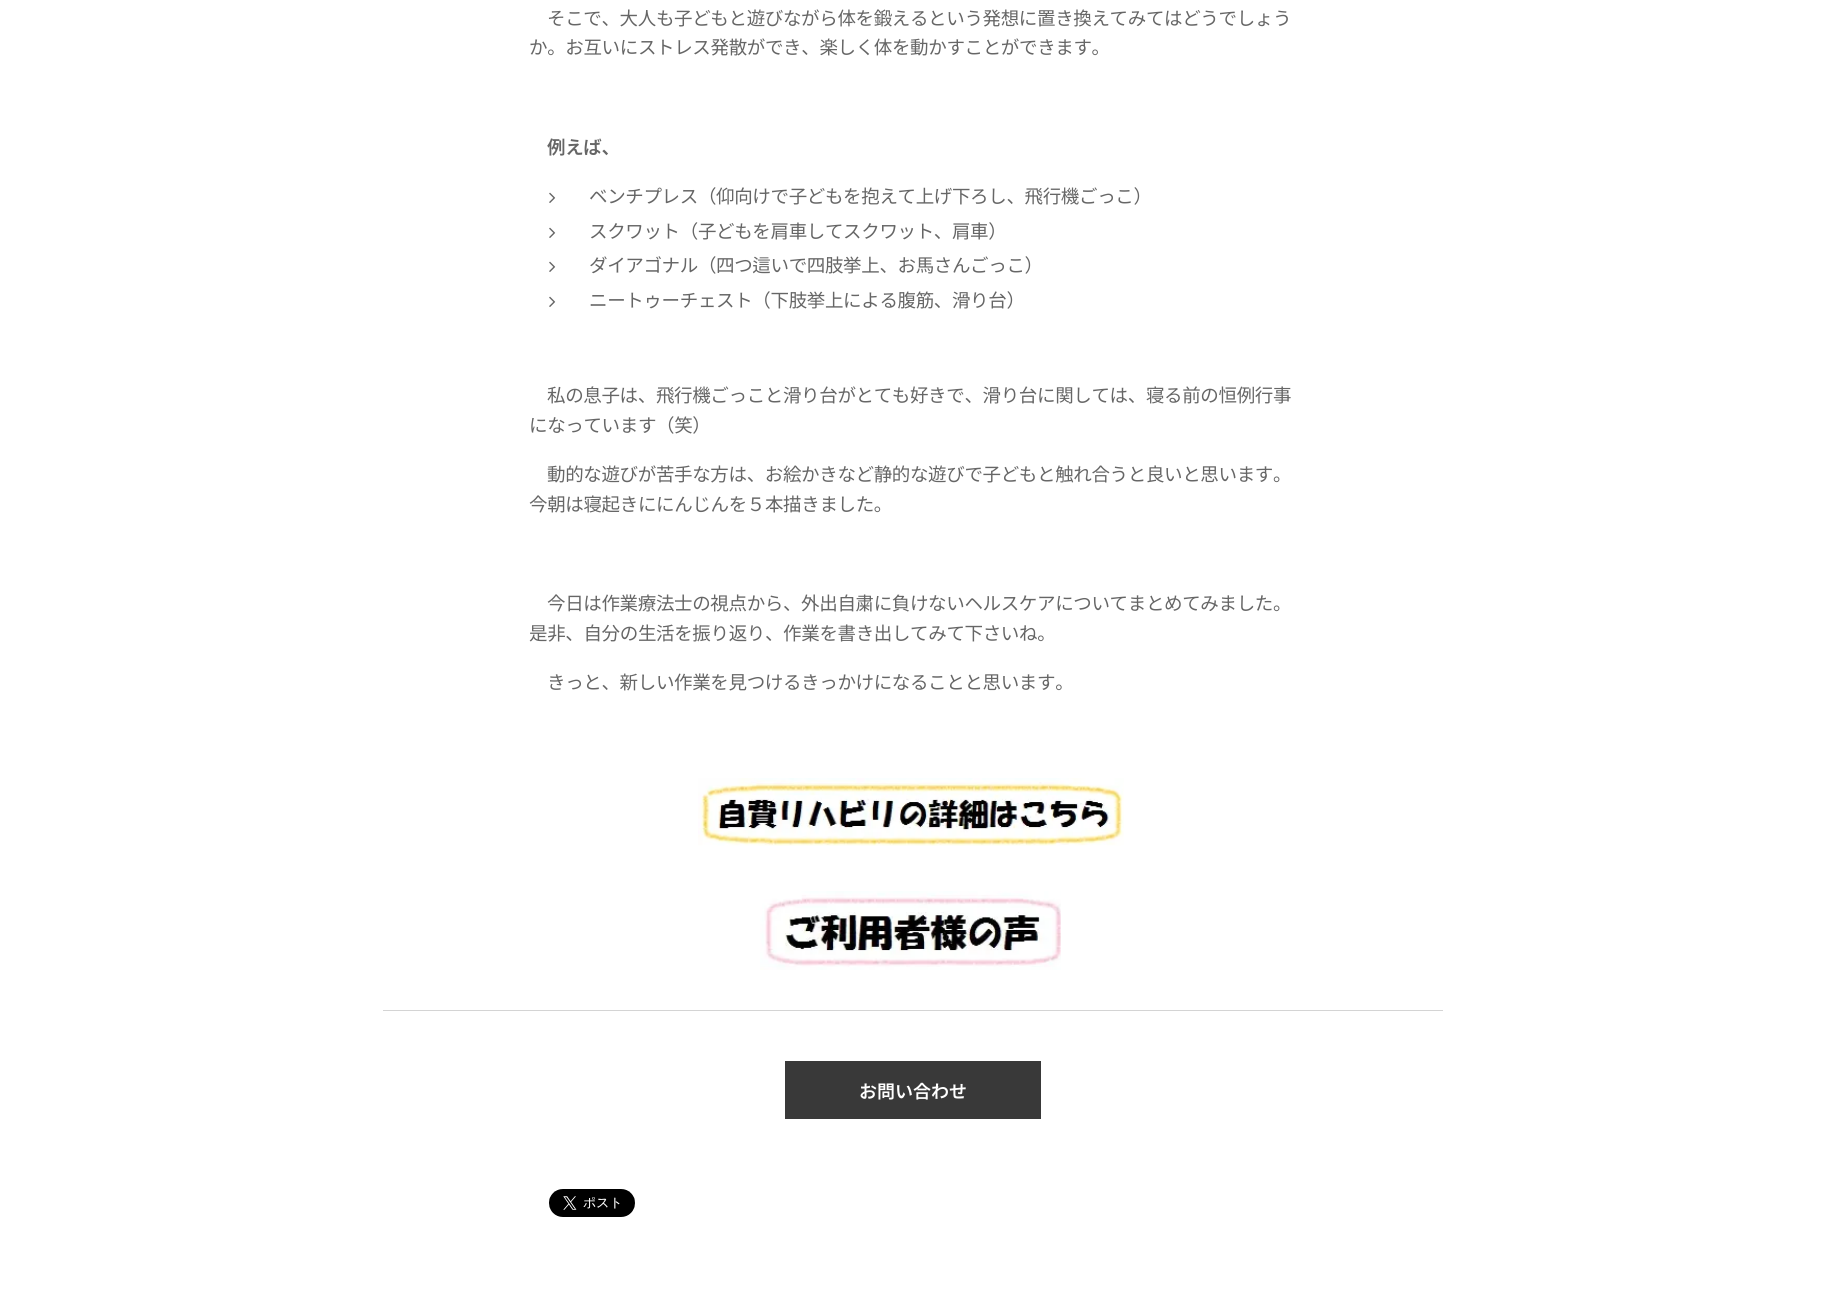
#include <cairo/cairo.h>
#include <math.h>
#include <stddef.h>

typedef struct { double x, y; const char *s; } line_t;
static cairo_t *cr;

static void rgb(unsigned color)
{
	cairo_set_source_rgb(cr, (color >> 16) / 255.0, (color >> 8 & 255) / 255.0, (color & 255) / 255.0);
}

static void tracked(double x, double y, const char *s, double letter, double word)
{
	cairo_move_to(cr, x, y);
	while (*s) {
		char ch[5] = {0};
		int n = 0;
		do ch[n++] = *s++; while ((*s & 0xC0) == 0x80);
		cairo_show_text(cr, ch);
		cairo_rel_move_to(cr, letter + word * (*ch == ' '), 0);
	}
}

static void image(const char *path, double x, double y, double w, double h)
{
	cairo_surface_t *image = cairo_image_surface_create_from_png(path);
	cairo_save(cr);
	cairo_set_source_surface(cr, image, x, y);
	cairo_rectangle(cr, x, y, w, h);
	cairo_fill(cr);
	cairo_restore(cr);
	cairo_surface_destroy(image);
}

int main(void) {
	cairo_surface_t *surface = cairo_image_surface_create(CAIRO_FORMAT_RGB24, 1826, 1294);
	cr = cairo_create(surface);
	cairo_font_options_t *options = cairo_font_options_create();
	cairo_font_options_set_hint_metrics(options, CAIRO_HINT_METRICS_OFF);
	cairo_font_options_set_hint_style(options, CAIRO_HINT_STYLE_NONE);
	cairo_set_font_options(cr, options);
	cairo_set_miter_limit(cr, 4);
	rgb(0xffffff);
	cairo_paint(cr);
	image("img/1.png", 549, 192, 7, 11);
	image("img/1.png", 549, 227, 7, 11);
	image("img/1.png", 549, 261, 7, 11);
	image("img/1.png", 549, 296, 7, 11);
	image("img/2.png", 698, 778, 426, 68);
	image("img/3.png", 760, 891, 301, 79);
	rgb(0xd4d4d4);
	cairo_rectangle(cr, 383, 1010, 1060, 1);
	cairo_fill(cr);
	rgb(0x393939);
	cairo_rectangle(cr, 785, 1061, 256, 58);
	cairo_fill(cr);
	image("img/4.png", 549, 1189, 86, 28);
	cairo_select_font_face(cr, "Noto Sans JP", CAIRO_FONT_SLANT_NORMAL, CAIRO_FONT_WEIGHT_NORMAL);
	cairo_set_font_size(cr, 18.5);
	rgb(0x666666);
	tracked(547, 25, "そこで、大人も子どもと遊びながら体を鍛えるという発想に置き換えてみてはどうでしょう", -0.35, 0);
	tracked(529, 54, "か。お互いにストレス発散ができ、楽しく体を動かすことができます。", -0.35, 0);
	cairo_select_font_face(cr, "Noto Sans JP SemiBold", CAIRO_FONT_SLANT_NORMAL, CAIRO_FONT_WEIGHT_NORMAL);
	tracked(547, 154, "例えば、", -0.35, 0);
	cairo_select_font_face(cr, "Noto Sans JP", CAIRO_FONT_SLANT_NORMAL, CAIRO_FONT_WEIGHT_NORMAL);
	{
		static const line_t items[] = {
			{589, 203, "ベンチプレス（仰向けで子どもを抱えて上げ下ろし、飛行機ごっこ）"},
			{589, 238, "スクワット（子どもを肩車してスクワット、肩車）"},
			{589, 272, "ダイアゴナル（四つ這いで四肢挙上、お馬さんごっこ）"},
			{589, 307, "ニートゥーチェスト（下肢挙上による腹筋、滑り台）"},
			{547, 402, "私の息子は、飛行機ごっこと滑り台がとても好きで、滑り台に関しては、寝る前の恒例行事"},
			{529, 432, "になっています（笑）"},
			{547, 481, "動的な遊びが苦手な方は、お絵かきなど静的な遊びで子どもと触れ合うと良いと思います。"},
			{529, 511, "今朝は寝起きににんじんを５本描きました。"},
			{547, 610, "今日は作業療法士の視点から、外出自粛に負けないヘルスケアについてまとめてみました。"},
			{529, 640, "是非、自分の生活を振り返り、作業を書き出してみて下さいね。"},
			{547, 689, "きっと、新しい作業を見つけるきっかけになることと思います。"},
		};
		for (size_t i = 0; i < sizeof items / sizeof *items; i++) {
			tracked(items[i].x, items[i].y, items[i].s, -0.35, 0);
		}
	}
	cairo_select_font_face(cr, "Noto Sans JP SemiBold", CAIRO_FONT_SLANT_NORMAL, CAIRO_FONT_WEIGHT_NORMAL);
	cairo_set_font_size(cr, 18);
	rgb(0xffffff);
	cairo_move_to(cr, 859, 1098);
	cairo_show_text(cr, "お問い合わせ");
	cairo_surface_write_to_png(surface, "page.png");
	cairo_font_options_destroy(options);
	cairo_destroy(cr);
	cairo_surface_destroy(surface);
	return 0;
}
